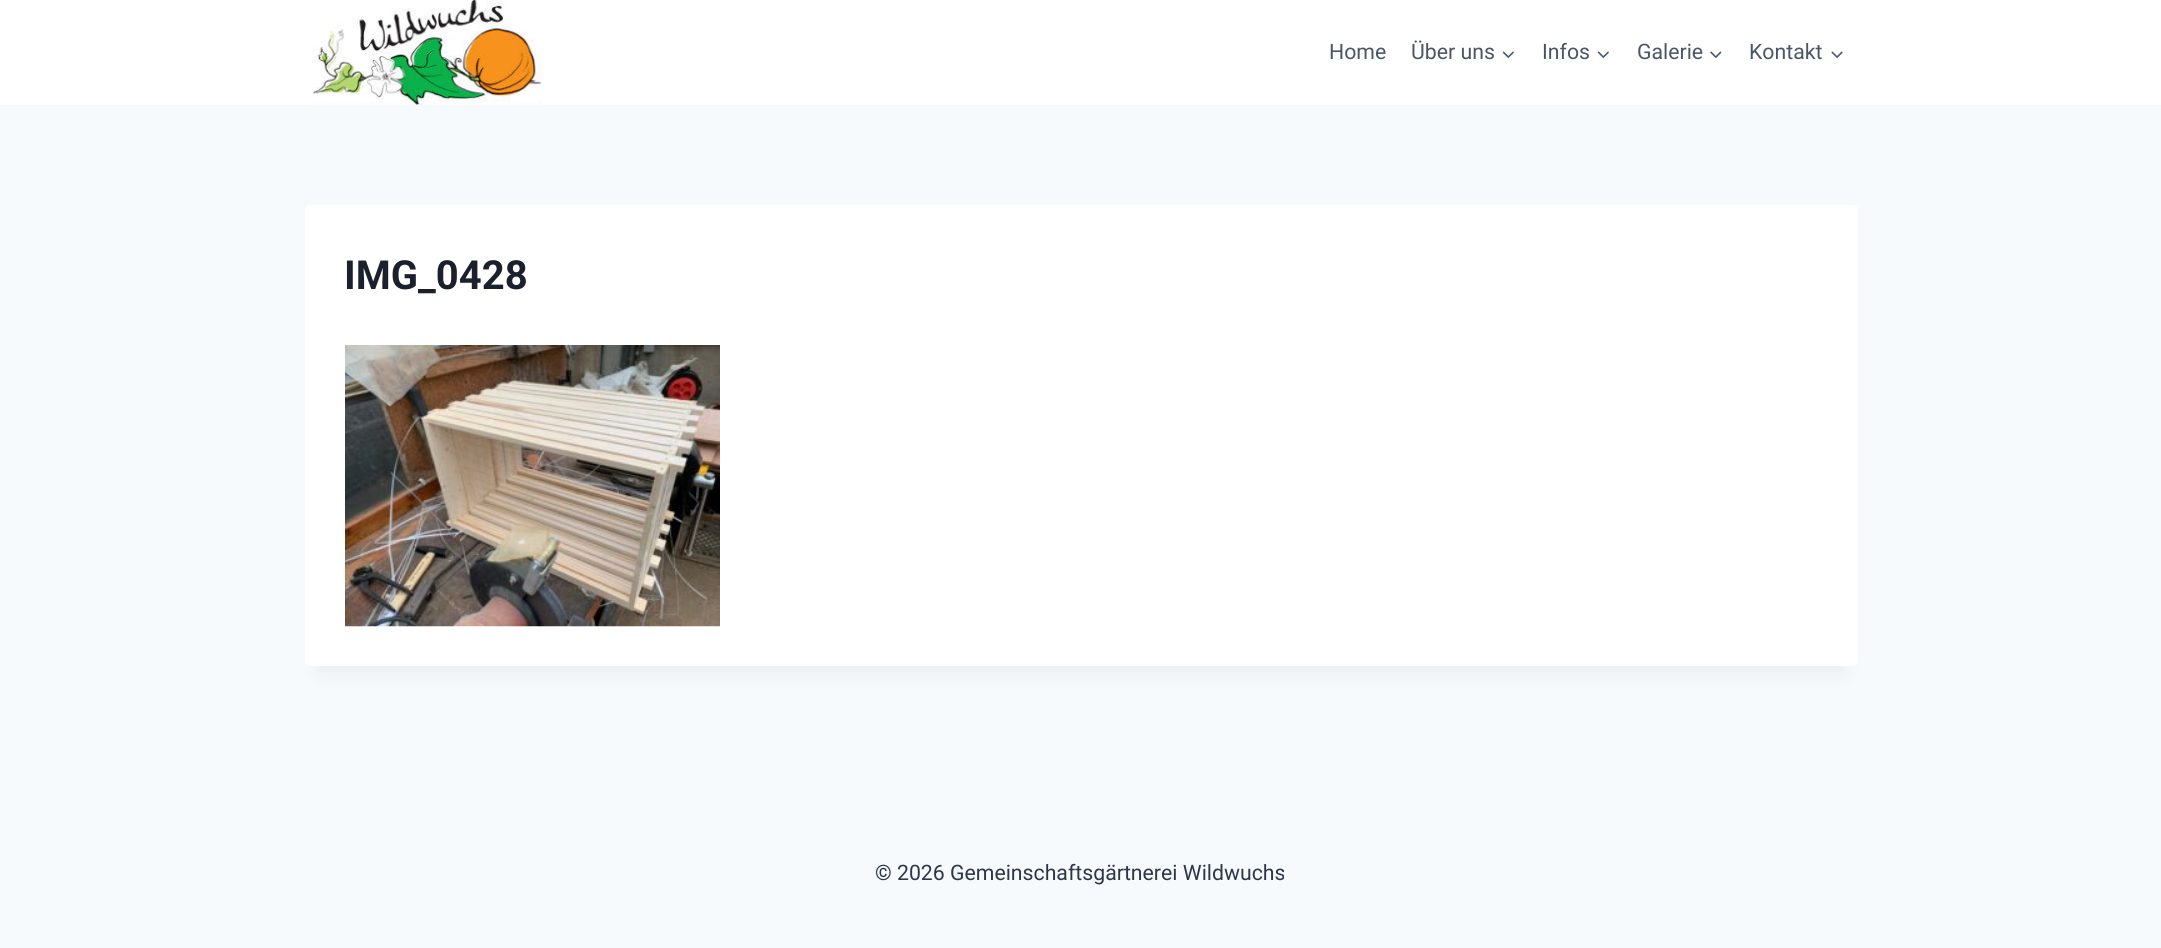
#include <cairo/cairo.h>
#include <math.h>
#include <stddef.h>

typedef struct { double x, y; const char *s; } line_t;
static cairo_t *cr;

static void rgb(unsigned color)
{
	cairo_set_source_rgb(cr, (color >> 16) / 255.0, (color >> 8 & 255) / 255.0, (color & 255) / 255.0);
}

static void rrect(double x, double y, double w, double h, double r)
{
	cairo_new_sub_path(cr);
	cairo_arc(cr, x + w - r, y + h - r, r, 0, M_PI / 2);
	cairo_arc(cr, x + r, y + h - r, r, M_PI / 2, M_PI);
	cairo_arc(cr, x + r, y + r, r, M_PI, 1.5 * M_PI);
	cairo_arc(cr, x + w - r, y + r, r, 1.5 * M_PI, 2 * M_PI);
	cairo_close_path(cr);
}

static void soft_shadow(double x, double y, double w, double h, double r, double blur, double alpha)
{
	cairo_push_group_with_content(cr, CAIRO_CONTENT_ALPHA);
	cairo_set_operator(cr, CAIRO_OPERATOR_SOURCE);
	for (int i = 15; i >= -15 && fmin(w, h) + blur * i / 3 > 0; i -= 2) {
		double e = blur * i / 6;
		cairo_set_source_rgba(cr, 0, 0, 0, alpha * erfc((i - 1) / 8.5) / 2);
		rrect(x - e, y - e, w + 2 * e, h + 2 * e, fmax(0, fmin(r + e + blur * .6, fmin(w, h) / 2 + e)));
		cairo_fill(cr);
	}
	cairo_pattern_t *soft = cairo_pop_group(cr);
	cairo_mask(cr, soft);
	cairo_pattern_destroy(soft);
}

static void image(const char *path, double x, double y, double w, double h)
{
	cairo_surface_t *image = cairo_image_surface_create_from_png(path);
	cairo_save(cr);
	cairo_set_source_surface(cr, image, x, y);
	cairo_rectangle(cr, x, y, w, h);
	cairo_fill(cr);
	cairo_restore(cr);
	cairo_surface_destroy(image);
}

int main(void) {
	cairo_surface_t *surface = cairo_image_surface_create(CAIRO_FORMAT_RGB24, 2161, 948);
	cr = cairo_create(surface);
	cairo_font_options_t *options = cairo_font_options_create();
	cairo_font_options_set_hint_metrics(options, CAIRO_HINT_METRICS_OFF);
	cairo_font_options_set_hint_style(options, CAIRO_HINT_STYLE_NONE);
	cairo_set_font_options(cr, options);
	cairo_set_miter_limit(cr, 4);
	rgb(0xf7fafc);
	cairo_paint(cr);
	rgb(0xffffff);
	cairo_rectangle(cr, 0, 0, 2161, 105);
	cairo_fill(cr);
	image("img/1.png", 313, 0, 229, 105);
	image("img/2.png", 1502, 51, 12, 7);
	image("img/2.png", 1597, 51, 12, 7);
	image("img/3.png", 1710, 51, 12, 7);
	image("img/4.png", 1831, 51, 12, 7);
	rgb(0x000000);
	soft_shadow(318, 236, 1527, 437, 0, 9.5, 0.05);
	rgb(0xffffff);
	rrect(305, 205, 1553, 461, 5);
	cairo_fill(cr);
	image("img/5.png", 345, 345, 375, 282);
	cairo_select_font_face(cr, "Roboto", CAIRO_FONT_SLANT_NORMAL, CAIRO_FONT_WEIGHT_NORMAL);
	cairo_set_font_size(cr, 21.25);
	rgb(0x4a5568);
	{
		static const line_t items[] = {
			{1329, 59, "Home"},
			{1411, 59, "Über uns"},
			{1542, 59, "Infos"},
			{1637, 59, "Galerie"},
			{1749, 59, "Kontakt"},
		};
		for (size_t i = 0; i < sizeof items / sizeof *items; i++) {
			cairo_move_to(cr, items[i].x, items[i].y);
			cairo_show_text(cr, items[i].s);
		}
	}
	cairo_select_font_face(cr, "Roboto", CAIRO_FONT_SLANT_NORMAL, CAIRO_FONT_WEIGHT_BOLD);
	cairo_set_font_size(cr, 40);
	rgb(0x1a202c);
	cairo_move_to(cr, 344, 289);
	cairo_show_text(cr, "IMG_0428");
	cairo_select_font_face(cr, "Roboto", CAIRO_FONT_SLANT_NORMAL, CAIRO_FONT_WEIGHT_NORMAL);
	cairo_set_font_size(cr, 21.25);
	rgb(0x2d3748);
	cairo_move_to(cr, 875, 880);
	cairo_show_text(cr, "© 2026 Gemeinschaftsgärtnerei Wildwuchs");
	cairo_surface_write_to_png(surface, "page.png");
	cairo_font_options_destroy(options);
	cairo_destroy(cr);
	cairo_surface_destroy(surface);
	return 0;
}
